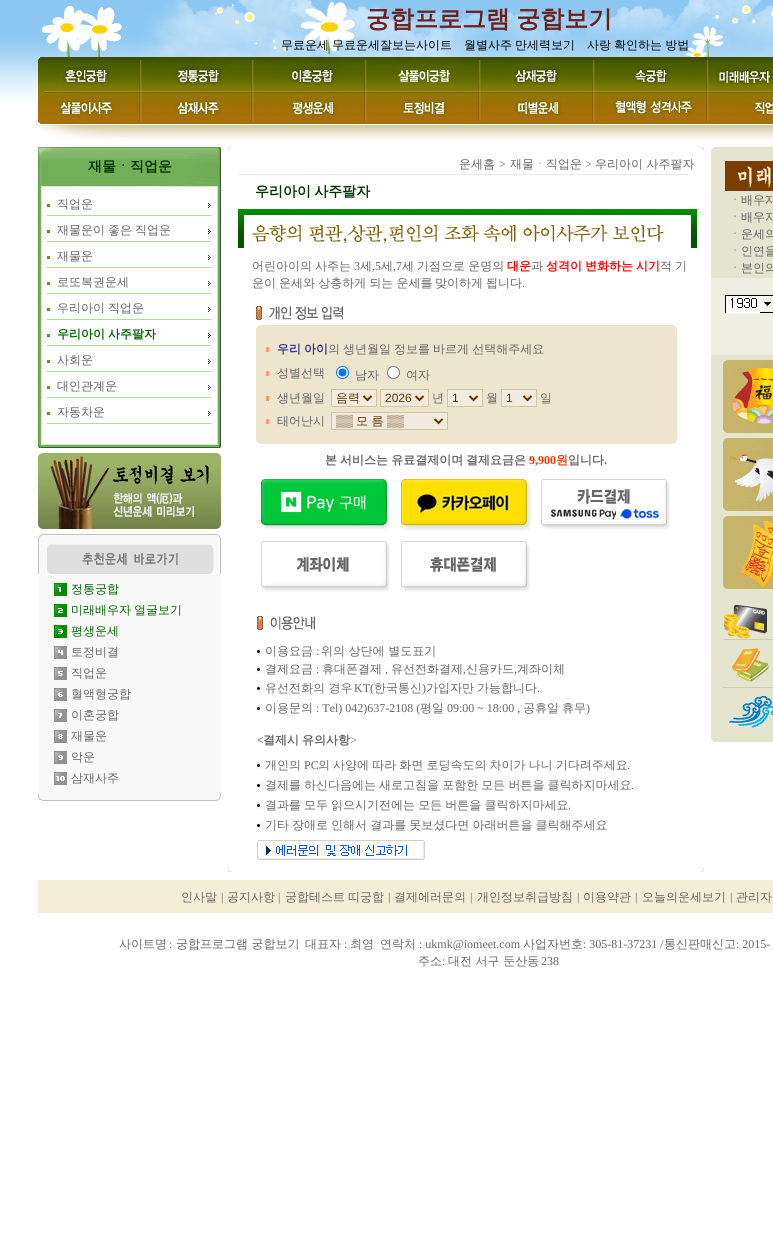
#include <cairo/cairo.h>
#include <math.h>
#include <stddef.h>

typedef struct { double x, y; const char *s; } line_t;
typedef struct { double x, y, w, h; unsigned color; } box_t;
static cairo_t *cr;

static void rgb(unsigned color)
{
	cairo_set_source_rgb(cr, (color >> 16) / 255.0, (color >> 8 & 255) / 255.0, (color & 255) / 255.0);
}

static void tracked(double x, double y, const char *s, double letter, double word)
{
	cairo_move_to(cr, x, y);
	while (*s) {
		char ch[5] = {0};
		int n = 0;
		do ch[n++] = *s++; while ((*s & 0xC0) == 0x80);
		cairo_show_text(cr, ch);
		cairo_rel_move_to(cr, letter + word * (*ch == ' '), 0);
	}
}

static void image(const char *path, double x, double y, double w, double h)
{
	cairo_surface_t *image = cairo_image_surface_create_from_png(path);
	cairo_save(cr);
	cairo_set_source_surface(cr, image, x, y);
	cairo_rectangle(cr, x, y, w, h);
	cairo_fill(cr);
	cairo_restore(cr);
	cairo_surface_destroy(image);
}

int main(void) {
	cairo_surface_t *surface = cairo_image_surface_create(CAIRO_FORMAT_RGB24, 773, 1243);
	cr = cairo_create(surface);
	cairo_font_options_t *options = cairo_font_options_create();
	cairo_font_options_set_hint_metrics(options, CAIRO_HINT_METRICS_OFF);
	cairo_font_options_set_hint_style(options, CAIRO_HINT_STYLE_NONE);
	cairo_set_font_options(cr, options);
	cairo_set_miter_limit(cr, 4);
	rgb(0xffffff);
	cairo_paint(cr);
	image("img/1.png", 0, 0, 42, 100);
	image("img/2.png", 42, 0, 731, 57);
	image("img/3.png", 38, 57, 101, 35);
	image("img/4.png", 139, 57, 112, 35);
	image("img/5.png", 251, 57, 113, 35);
	image("img/6.png", 364, 57, 114, 35);
	image("img/7.png", 478, 57, 114, 35);
	image("img/8.png", 592, 57, 115, 35);
	image("img/9.png", 707, 57, 66, 35);
	image("img/10.png", 38, 92, 101, 32);
	image("img/11.png", 139, 92, 112, 32);
	image("img/12.png", 251, 92, 113, 32);
	image("img/13.png", 364, 92, 114, 32);
	image("img/14.png", 478, 92, 114, 32);
	image("img/15.png", 592, 92, 115, 32);
	image("img/16.png", 707, 92, 66, 32);
	image("img/17.png", 38, 125, 735, 16);
	image("img/18.png", 38, 147, 183, 39);
	image("img/19.png", 38, 186, 183, 4);
	image("img/20.png", 38, 190, 183, 252);
	image("img/21.png", 47, 203, 164, 13);
	image("img/21.png", 47, 229, 164, 13);
	image("img/21.png", 47, 255, 164, 13);
	image("img/21.png", 47, 281, 164, 13);
	image("img/21.png", 47, 307, 164, 13);
	image("img/21.png", 47, 333, 164, 13);
	image("img/21.png", 47, 359, 164, 13);
	image("img/21.png", 47, 385, 164, 13);
	image("img/21.png", 47, 411, 164, 13);
	image("img/22.png", 38, 442, 183, 6);
	image("img/23.png", 38, 453, 183, 76);
	image("img/24.png", 38, 534, 183, 40);
	rgb(0xf9f9f9);
	cairo_rectangle(cr, 38, 574, 183, 220);
	cairo_fill(cr);
	image("img/25.png", 54, 583, 13, 13);
	image("img/26.png", 54, 604, 13, 13);
	image("img/27.png", 54, 625, 13, 13);
	image("img/28.png", 54, 646, 13, 13);
	image("img/29.png", 54, 667, 13, 13);
	image("img/30.png", 54, 688, 13, 13);
	image("img/31.png", 54, 709, 13, 13);
	image("img/32.png", 54, 730, 13, 13);
	image("img/33.png", 54, 751, 13, 13);
	image("img/34.png", 54, 772, 13, 13);
	image("img/35.png", 38, 794, 183, 7);
	image("img/36.png", 228, 147, 476, 5);
	rgb(0xe7e9ea);
	cairo_rectangle(cr, 239, 174, 449, 1);
	cairo_fill(cr);
	image("img/37.png", 238, 209, 459, 39);
	image("img/38.png", 252, 224, 412, 19);
	image("img/39.png", 256, 306, 87, 14);
	image("img/40.png", 256, 325, 421, 7);
	{
		static const box_t items[] = {
			{256, 332, 421, 106, 0xede5cd},
			{266, 347, 3, 5, 0xff9771},
			{266, 371, 3, 5, 0xff9771},
		};
		for (size_t i = 0; i < sizeof items / sizeof *items; i++) {
			rgb(items[i].color);
			cairo_rectangle(cr, items[i].x, items[i].y, items[i].w, items[i].h);
			cairo_fill(cr);
		}
	}
	rgb(0xffffff);
	cairo_arc(cr, 342.5, 372.5, 6, 0, 2 * M_PI);
	cairo_fill_preserve(cr);
	rgb(0x0075ff);
	cairo_set_line_width(cr, 1);
	cairo_stroke(cr);
	cairo_arc(cr, 342.5, 372.5, 4, 0, 2 * M_PI);
	cairo_fill(cr);
	rgb(0xffffff);
	cairo_arc(cr, 393.5, 372.5, 6, 0, 2 * M_PI);
	cairo_fill_preserve(cr);
	rgb(0x767676);
	cairo_stroke(cr);
	rgb(0xff9771);
	cairo_rectangle(cr, 266, 396, 3, 5);
	cairo_fill(cr);
	rgb(0xf1ebe0);
	cairo_rectangle(cr, 331.5, 389.5, 45, 17);
	cairo_fill_preserve(cr);
	rgb(0xd5c29f);
	cairo_stroke(cr);
	cairo_new_path(cr);
	cairo_move_to(cr, 363.5, 396);
	cairo_line_to(cr, 367.5, 400);
	cairo_line_to(cr, 371.5, 396);
	rgb(0x663300);
	cairo_set_line_width(cr, 2);
	cairo_stroke(cr);
	rgb(0xf1ebe0);
	cairo_rectangle(cr, 380.5, 389.5, 48, 17);
	cairo_fill_preserve(cr);
	rgb(0xd5c29f);
	cairo_set_line_width(cr, 1);
	cairo_stroke(cr);
	cairo_new_path(cr);
	cairo_move_to(cr, 415.5, 396);
	cairo_line_to(cr, 419.5, 400);
	cairo_line_to(cr, 423.5, 396);
	rgb(0x663300);
	cairo_set_line_width(cr, 2);
	cairo_stroke(cr);
	rgb(0xf1ebe0);
	cairo_rectangle(cr, 447.5, 389.5, 35, 17);
	cairo_fill_preserve(cr);
	rgb(0xd5c29f);
	cairo_set_line_width(cr, 1);
	cairo_stroke(cr);
	cairo_new_path(cr);
	cairo_move_to(cr, 469.5, 396);
	cairo_line_to(cr, 473.5, 400);
	cairo_line_to(cr, 477.5, 396);
	rgb(0x663300);
	cairo_set_line_width(cr, 2);
	cairo_stroke(cr);
	rgb(0xf1ebe0);
	cairo_rectangle(cr, 501.5, 389.5, 35, 17);
	cairo_fill_preserve(cr);
	rgb(0xd5c29f);
	cairo_set_line_width(cr, 1);
	cairo_stroke(cr);
	cairo_new_path(cr);
	cairo_move_to(cr, 523.5, 396);
	cairo_line_to(cr, 527.5, 400);
	cairo_line_to(cr, 531.5, 396);
	rgb(0x663300);
	cairo_set_line_width(cr, 2);
	cairo_stroke(cr);
	rgb(0xff9771);
	cairo_rectangle(cr, 266, 419, 3, 5);
	cairo_fill(cr);
	rgb(0xf1ebe0);
	cairo_rectangle(cr, 331.5, 412.5, 116, 17);
	cairo_fill_preserve(cr);
	rgb(0xd5c29f);
	cairo_set_line_width(cr, 1);
	cairo_stroke(cr);
	cairo_new_path(cr);
	cairo_move_to(cr, 434.5, 419);
	cairo_line_to(cr, 438.5, 423);
	cairo_line_to(cr, 442.5, 419);
	rgb(0x663300);
	cairo_set_line_width(cr, 2);
	cairo_stroke(cr);
	image("img/41.png", 256, 438, 421, 6);
	image("img/42.png", 261, 479, 129, 50);
	image("img/43.png", 401, 479, 130, 52);
	image("img/44.png", 541, 479, 129, 51);
	image("img/45.png", 261, 541, 129, 51);
	image("img/46.png", 401, 541, 129, 51);
	image("img/47.png", 257, 616, 58, 14);
	image("img/48.png", 257, 648, 8, 7);
	image("img/48.png", 257, 666, 8, 7);
	image("img/48.png", 257, 685, 8, 7);
	image("img/48.png", 257, 705, 8, 7);
	image("img/48.png", 257, 762, 8, 7);
	image("img/48.png", 257, 782, 8, 7);
	image("img/48.png", 257, 802, 8, 7);
	image("img/48.png", 257, 822, 8, 7);
	image("img/49.png", 257, 840, 168, 20);
	image("img/50.png", 228, 867, 476, 5);
	rgb(0xe4e4cf);
	cairo_rectangle(cr, 711, 191, 62, 541);
	cairo_fill(cr);
	image("img/51.png", 711, 147, 62, 44);
	image("img/52.png", 711, 278, 62, 77);
	image("img/53.png", 723, 360, 50, 73);
	image("img/54.png", 723, 438, 50, 73);
	image("img/55.png", 723, 516, 50, 73);
	image("img/56.png", 724, 605, 49, 35);
	image("img/57.png", 723, 648, 50, 40);
	image("img/58.png", 729, 696, 44, 32);
	image("img/59.png", 711, 732, 62, 10);
	rgb(0xf6edd6);
	cairo_rectangle(cr, 38, 880, 735, 33);
	cairo_fill(cr);
	cairo_select_font_face(cr, "WenQuanYi Zen Hei", CAIRO_FONT_SLANT_NORMAL, CAIRO_FONT_WEIGHT_BOLD);
	cairo_set_font_size(cr, 24);
	rgb(0x6d201b);
	tracked(366, 27, "궁합프로그램 궁합보기", 0, -1);
	cairo_select_font_face(cr, "WenQuanYi Zen Hei Medium", CAIRO_FONT_SLANT_NORMAL, CAIRO_FONT_WEIGHT_NORMAL);
	cairo_set_font_size(cr, 12);
	rgb(0x000000);
	{
		static const line_t items[] = {
			{281, 49, "무료운세 무료운세잘보는사이트"},
			{464, 49, "월별사주 만세력보기"},
			{587, 49, "사랑 확인하는 방법"},
		};
		for (size_t i = 0; i < sizeof items / sizeof *items; i++) {
			tracked(items[i].x, items[i].y, items[i].s, 0, -0.5);
		}
	}
	cairo_select_font_face(cr, "WenQuanYi Zen Hei", CAIRO_FONT_SLANT_NORMAL, CAIRO_FONT_WEIGHT_BOLD);
	cairo_set_font_size(cr, 14);
	rgb(0x003300);
	cairo_move_to(cr, 88, 171);
	cairo_show_text(cr, "재물ㆍ직업운");
	cairo_select_font_face(cr, "WenQuanYi Zen Hei Medium", CAIRO_FONT_SLANT_NORMAL, CAIRO_FONT_WEIGHT_NORMAL);
	cairo_set_font_size(cr, 12);
	rgb(0x666666);
	cairo_move_to(cr, 57, 208);
	cairo_show_text(cr, "직업운");
	cairo_move_to(cr, 57, 234);
	cairo_show_text(cr, "재물운이");
	tracked(108, 234, "좋은 직업운", 0, -0.5);
	{
		static const line_t items[] = {
			{57, 260, "재물운"},
			{57, 286, "로또복권운세"},
			{57, 312, "우리아이"},
			{108, 312, "직업운"},
		};
		for (size_t i = 0; i < sizeof items / sizeof *items; i++) {
			cairo_move_to(cr, items[i].x, items[i].y);
			cairo_show_text(cr, items[i].s);
		}
	}
	cairo_select_font_face(cr, "WenQuanYi Zen Hei", CAIRO_FONT_SLANT_NORMAL, CAIRO_FONT_WEIGHT_BOLD);
	rgb(0x006600);
	cairo_move_to(cr, 57, 338);
	cairo_show_text(cr, "우리아이");
	cairo_move_to(cr, 108, 338);
	cairo_show_text(cr, "사주팔자");
	cairo_select_font_face(cr, "WenQuanYi Zen Hei Medium", CAIRO_FONT_SLANT_NORMAL, CAIRO_FONT_WEIGHT_NORMAL);
	rgb(0x666666);
	{
		static const line_t items[] = {
			{57, 364, "사회운"},
			{57, 390, "대인관계운"},
			{57, 416, "자동차운"},
		};
		for (size_t i = 0; i < sizeof items / sizeof *items; i++) {
			cairo_move_to(cr, items[i].x, items[i].y);
			cairo_show_text(cr, items[i].s);
		}
	}
	rgb(0x006600);
	{
		static const line_t items[] = {
			{71, 593, "정통궁합"},
			{71, 614, "미래배우자"},
			{134, 614, "얼굴보기"},
			{71, 635, "평생운세"},
		};
		for (size_t i = 0; i < sizeof items / sizeof *items; i++) {
			cairo_move_to(cr, items[i].x, items[i].y);
			cairo_show_text(cr, items[i].s);
		}
	}
	rgb(0x666666);
	{
		static const line_t items[] = {
			{71, 656, "토정비결"},
			{71, 677, "직업운"},
			{71, 698, "혈액형궁합"},
			{71, 719, "이혼궁합"},
			{71, 740, "재물운"},
			{71, 761, "악운"},
			{71, 782, "삼재사주"},
			{459, 168, "운세홈"},
		};
		for (size_t i = 0; i < sizeof items / sizeof *items; i++) {
			cairo_move_to(cr, items[i].x, items[i].y);
			cairo_show_text(cr, items[i].s);
		}
	}
	cairo_select_font_face(cr, "Liberation Serif", CAIRO_FONT_SLANT_NORMAL, CAIRO_FONT_WEIGHT_NORMAL);
	cairo_move_to(cr, 499, 168);
	cairo_show_text(cr, ">");
	cairo_select_font_face(cr, "WenQuanYi Zen Hei Medium", CAIRO_FONT_SLANT_NORMAL, CAIRO_FONT_WEIGHT_NORMAL);
	cairo_move_to(cr, 510, 168);
	cairo_show_text(cr, "재물ㆍ직업운");
	cairo_select_font_face(cr, "Liberation Serif", CAIRO_FONT_SLANT_NORMAL, CAIRO_FONT_WEIGHT_NORMAL);
	cairo_move_to(cr, 585, 168);
	cairo_show_text(cr, ">");
	cairo_select_font_face(cr, "WenQuanYi Zen Hei Medium", CAIRO_FONT_SLANT_NORMAL, CAIRO_FONT_WEIGHT_NORMAL);
	cairo_move_to(cr, 595, 168);
	cairo_show_text(cr, "우리아이 사주팔자");
	cairo_select_font_face(cr, "WenQuanYi Zen Hei", CAIRO_FONT_SLANT_NORMAL, CAIRO_FONT_WEIGHT_BOLD);
	cairo_set_font_size(cr, 14);
	rgb(0x003300);
	tracked(255, 196, "우리아이 사주팔자", 0, -1);
	cairo_select_font_face(cr, "WenQuanYi Zen Hei Medium", CAIRO_FONT_SLANT_NORMAL, CAIRO_FONT_WEIGHT_NORMAL);
	cairo_set_font_size(cr, 12);
	rgb(0x666666);
	tracked(252, 270, "어린아이의 사주는", 0, -0.5);
	cairo_select_font_face(cr, "Liberation Serif", CAIRO_FONT_SLANT_NORMAL, CAIRO_FONT_WEIGHT_NORMAL);
	cairo_move_to(cr, 354, 270);
	cairo_show_text(cr, "3");
	cairo_select_font_face(cr, "WenQuanYi Zen Hei Medium", CAIRO_FONT_SLANT_NORMAL, CAIRO_FONT_WEIGHT_NORMAL);
	cairo_move_to(cr, 360, 270);
	cairo_show_text(cr, "세");
	cairo_select_font_face(cr, "Liberation Serif", CAIRO_FONT_SLANT_NORMAL, CAIRO_FONT_WEIGHT_NORMAL);
	cairo_move_to(cr, 372, 270);
	cairo_show_text(cr, ",5");
	cairo_select_font_face(cr, "WenQuanYi Zen Hei Medium", CAIRO_FONT_SLANT_NORMAL, CAIRO_FONT_WEIGHT_NORMAL);
	cairo_move_to(cr, 381, 270);
	cairo_show_text(cr, "세");
	cairo_select_font_face(cr, "Liberation Serif", CAIRO_FONT_SLANT_NORMAL, CAIRO_FONT_WEIGHT_NORMAL);
	cairo_move_to(cr, 393, 270);
	cairo_show_text(cr, ",7");
	cairo_select_font_face(cr, "WenQuanYi Zen Hei Medium", CAIRO_FONT_SLANT_NORMAL, CAIRO_FONT_WEIGHT_NORMAL);
	tracked(402, 270, "세 기점으로 운명의", 0, -0.5);
	cairo_select_font_face(cr, "WenQuanYi Zen Hei", CAIRO_FONT_SLANT_NORMAL, CAIRO_FONT_WEIGHT_BOLD);
	rgb(0xff0000);
	cairo_move_to(cr, 507, 270);
	cairo_show_text(cr, "대운");
	cairo_select_font_face(cr, "WenQuanYi Zen Hei Medium", CAIRO_FONT_SLANT_NORMAL, CAIRO_FONT_WEIGHT_NORMAL);
	rgb(0x666666);
	cairo_move_to(cr, 531, 270);
	cairo_show_text(cr, "과");
	cairo_select_font_face(cr, "WenQuanYi Zen Hei", CAIRO_FONT_SLANT_NORMAL, CAIRO_FONT_WEIGHT_BOLD);
	rgb(0xff0000);
	tracked(546, 270, "성격이 변화하는", 0, -0.5);
	cairo_move_to(cr, 636, 270);
	cairo_show_text(cr, "시기");
	cairo_select_font_face(cr, "WenQuanYi Zen Hei Medium", CAIRO_FONT_SLANT_NORMAL, CAIRO_FONT_WEIGHT_NORMAL);
	rgb(0x666666);
	{
		static const line_t items[] = {
			{660, 270, "적 기"},
			{252, 287, "운이 운세와 상충하게 되는 운세를"},
			{435, 287, "맞이하게 됩니다"},
		};
		for (size_t i = 0; i < sizeof items / sizeof *items; i++) {
			tracked(items[i].x, items[i].y, items[i].s, 0, -0.5);
		}
	}
	cairo_select_font_face(cr, "Liberation Serif", CAIRO_FONT_SLANT_NORMAL, CAIRO_FONT_WEIGHT_NORMAL);
	cairo_move_to(cr, 522, 287);
	cairo_show_text(cr, ".");
	cairo_select_font_face(cr, "WenQuanYi Zen Hei", CAIRO_FONT_SLANT_NORMAL, CAIRO_FONT_WEIGHT_BOLD);
	rgb(0x333399);
	tracked(277, 353, "우리 아이", 0, -0.5);
	cairo_select_font_face(cr, "WenQuanYi Zen Hei Medium", CAIRO_FONT_SLANT_NORMAL, CAIRO_FONT_WEIGHT_NORMAL);
	rgb(0x666666);
	tracked(328, 353, "의 생년월일", 0, -0.5);
	tracked(394, 353, "정보를 바르게 선택해주세요", 0, -0.5);
	{
		static const line_t items[] = {
			{277, 377, "성별선택"},
			{355, 379, "남자"},
			{406, 379, "여자"},
			{277, 402, "생년월일"},
		};
		for (size_t i = 0; i < sizeof items / sizeof *items; i++) {
			cairo_move_to(cr, items[i].x, items[i].y);
			cairo_show_text(cr, items[i].s);
		}
	}
	rgb(0x663300);
	cairo_move_to(cr, 336, 402);
	cairo_show_text(cr, "음력");
	cairo_select_font_face(cr, "Liberation Sans", CAIRO_FONT_SLANT_NORMAL, CAIRO_FONT_WEIGHT_NORMAL);
	cairo_move_to(cr, 385, 402);
	cairo_show_text(cr, "2026");
	cairo_select_font_face(cr, "WenQuanYi Zen Hei Medium", CAIRO_FONT_SLANT_NORMAL, CAIRO_FONT_WEIGHT_NORMAL);
	rgb(0x666666);
	cairo_move_to(cr, 432, 402);
	cairo_show_text(cr, "년");
	cairo_select_font_face(cr, "Liberation Sans", CAIRO_FONT_SLANT_NORMAL, CAIRO_FONT_WEIGHT_NORMAL);
	rgb(0x663300);
	cairo_move_to(cr, 452, 402);
	cairo_show_text(cr, "1");
	cairo_select_font_face(cr, "WenQuanYi Zen Hei Medium", CAIRO_FONT_SLANT_NORMAL, CAIRO_FONT_WEIGHT_NORMAL);
	rgb(0x666666);
	cairo_move_to(cr, 486, 402);
	cairo_show_text(cr, "월");
	cairo_select_font_face(cr, "Liberation Sans", CAIRO_FONT_SLANT_NORMAL, CAIRO_FONT_WEIGHT_NORMAL);
	rgb(0x663300);
	cairo_move_to(cr, 506, 402);
	cairo_show_text(cr, "1");
	cairo_select_font_face(cr, "WenQuanYi Zen Hei Medium", CAIRO_FONT_SLANT_NORMAL, CAIRO_FONT_WEIGHT_NORMAL);
	rgb(0x666666);
	cairo_move_to(cr, 540, 402);
	cairo_show_text(cr, "일");
	cairo_move_to(cr, 277, 425);
	cairo_show_text(cr, "태어난시");
	cairo_save(cr);
	cairo_rectangle(cr, 336, 413, 95, 16);
	cairo_clip(cr);
	cairo_select_font_face(cr, "Liberation Sans", CAIRO_FONT_SLANT_NORMAL, CAIRO_FONT_WEIGHT_NORMAL);
	rgb(0x663300);
	cairo_move_to(cr, 336, 425);
	cairo_show_text(cr, "▒▒");
	cairo_restore(cr);
	rgb(0x663300);
	cairo_move_to(cr, 356, 425);
	cairo_show_text(cr, "모 름");
	cairo_select_font_face(cr, "Liberation Sans", CAIRO_FONT_SLANT_NORMAL, CAIRO_FONT_WEIGHT_NORMAL);
	cairo_move_to(cr, 387, 425);
	cairo_show_text(cr, "▒▒");
	cairo_select_font_face(cr, "WenQuanYi Zen Hei", CAIRO_FONT_SLANT_NORMAL, CAIRO_FONT_WEIGHT_BOLD);
	rgb(0x666666);
	tracked(325, 464, "본 서비스는 유료결제이며", 0, -0.5);
	cairo_move_to(cr, 466, 464);
	cairo_show_text(cr, "결제요금은");
	cairo_select_font_face(cr, "Liberation Serif", CAIRO_FONT_SLANT_NORMAL, CAIRO_FONT_WEIGHT_BOLD);
	rgb(0xff3300);
	cairo_move_to(cr, 529, 464);
	cairo_show_text(cr, "9,900");
	cairo_select_font_face(cr, "WenQuanYi Zen Hei", CAIRO_FONT_SLANT_NORMAL, CAIRO_FONT_WEIGHT_BOLD);
	cairo_move_to(cr, 556, 464);
	cairo_show_text(cr, "원");
	rgb(0x666666);
	cairo_move_to(cr, 568, 464);
	cairo_show_text(cr, "입니다");
	cairo_select_font_face(cr, "Liberation Serif", CAIRO_FONT_SLANT_NORMAL, CAIRO_FONT_WEIGHT_BOLD);
	cairo_move_to(cr, 604, 464);
	cairo_show_text(cr, ".");
	cairo_select_font_face(cr, "WenQuanYi Zen Hei Medium", CAIRO_FONT_SLANT_NORMAL, CAIRO_FONT_WEIGHT_NORMAL);
	cairo_move_to(cr, 265, 655);
	cairo_show_text(cr, "이용요금");
	cairo_select_font_face(cr, "Liberation Serif", CAIRO_FONT_SLANT_NORMAL, CAIRO_FONT_WEIGHT_NORMAL);
	cairo_move_to(cr, 316, 655);
	cairo_show_text(cr, ":");
	cairo_select_font_face(cr, "WenQuanYi Zen Hei Medium", CAIRO_FONT_SLANT_NORMAL, CAIRO_FONT_WEIGHT_NORMAL);
	cairo_move_to(cr, 321, 655);
	cairo_show_text(cr, "위의 상단에 별도표기");
	cairo_move_to(cr, 265, 673);
	cairo_show_text(cr, "결제요금");
	cairo_select_font_face(cr, "Liberation Serif", CAIRO_FONT_SLANT_NORMAL, CAIRO_FONT_WEIGHT_NORMAL);
	cairo_move_to(cr, 316, 673);
	cairo_show_text(cr, ":");
	cairo_select_font_face(cr, "WenQuanYi Zen Hei Medium", CAIRO_FONT_SLANT_NORMAL, CAIRO_FONT_WEIGHT_NORMAL);
	cairo_move_to(cr, 322, 673);
	cairo_show_text(cr, "휴대폰결제");
	cairo_select_font_face(cr, "Liberation Serif", CAIRO_FONT_SLANT_NORMAL, CAIRO_FONT_WEIGHT_NORMAL);
	cairo_move_to(cr, 385, 673);
	cairo_show_text(cr, ",");
	cairo_select_font_face(cr, "WenQuanYi Zen Hei Medium", CAIRO_FONT_SLANT_NORMAL, CAIRO_FONT_WEIGHT_NORMAL);
	cairo_move_to(cr, 391, 673);
	cairo_show_text(cr, "유선전화결제");
	cairo_select_font_face(cr, "Liberation Serif", CAIRO_FONT_SLANT_NORMAL, CAIRO_FONT_WEIGHT_NORMAL);
	cairo_move_to(cr, 463, 673);
	cairo_show_text(cr, ",");
	cairo_select_font_face(cr, "WenQuanYi Zen Hei Medium", CAIRO_FONT_SLANT_NORMAL, CAIRO_FONT_WEIGHT_NORMAL);
	cairo_move_to(cr, 466, 673);
	cairo_show_text(cr, "신용카드");
	cairo_select_font_face(cr, "Liberation Serif", CAIRO_FONT_SLANT_NORMAL, CAIRO_FONT_WEIGHT_NORMAL);
	cairo_move_to(cr, 514, 673);
	cairo_show_text(cr, ",");
	cairo_select_font_face(cr, "WenQuanYi Zen Hei Medium", CAIRO_FONT_SLANT_NORMAL, CAIRO_FONT_WEIGHT_NORMAL);
	cairo_move_to(cr, 517, 673);
	cairo_show_text(cr, "계좌이체");
	cairo_move_to(cr, 265, 692);
	cairo_show_text(cr, "유선전화의 경우");
	cairo_select_font_face(cr, "Liberation Serif", CAIRO_FONT_SLANT_NORMAL, CAIRO_FONT_WEIGHT_NORMAL);
	cairo_move_to(cr, 354, 692);
	cairo_show_text(cr, "KT(");
	cairo_select_font_face(cr, "WenQuanYi Zen Hei Medium", CAIRO_FONT_SLANT_NORMAL, CAIRO_FONT_WEIGHT_NORMAL);
	cairo_move_to(cr, 374, 692);
	cairo_show_text(cr, "한국통신");
	cairo_select_font_face(cr, "Liberation Serif", CAIRO_FONT_SLANT_NORMAL, CAIRO_FONT_WEIGHT_NORMAL);
	cairo_move_to(cr, 422, 692);
	cairo_show_text(cr, ")");
	cairo_select_font_face(cr, "WenQuanYi Zen Hei Medium", CAIRO_FONT_SLANT_NORMAL, CAIRO_FONT_WEIGHT_NORMAL);
	cairo_move_to(cr, 426, 692);
	cairo_show_text(cr, "가입자만");
	cairo_move_to(cr, 477, 692);
	cairo_show_text(cr, "가능합니다");
	cairo_select_font_face(cr, "Liberation Serif", CAIRO_FONT_SLANT_NORMAL, CAIRO_FONT_WEIGHT_NORMAL);
	cairo_move_to(cr, 537, 692);
	cairo_show_text(cr, ".");
	cairo_select_font_face(cr, "WenQuanYi Zen Hei Medium", CAIRO_FONT_SLANT_NORMAL, CAIRO_FONT_WEIGHT_NORMAL);
	cairo_move_to(cr, 265, 712);
	cairo_show_text(cr, "이용문의");
	cairo_select_font_face(cr, "Liberation Serif", CAIRO_FONT_SLANT_NORMAL, CAIRO_FONT_WEIGHT_NORMAL);
	cairo_move_to(cr, 316, 712);
	cairo_show_text(cr, ": Tel) 042)637-2108 (");
	cairo_select_font_face(cr, "WenQuanYi Zen Hei Medium", CAIRO_FONT_SLANT_NORMAL, CAIRO_FONT_WEIGHT_NORMAL);
	cairo_move_to(cr, 420, 712);
	cairo_show_text(cr, "평일");
	cairo_select_font_face(cr, "Liberation Serif", CAIRO_FONT_SLANT_NORMAL, CAIRO_FONT_WEIGHT_NORMAL);
	cairo_move_to(cr, 447, 712);
	cairo_show_text(cr, "09:00 ~ 18:00 ,");
	cairo_select_font_face(cr, "WenQuanYi Zen Hei Medium", CAIRO_FONT_SLANT_NORMAL, CAIRO_FONT_WEIGHT_NORMAL);
	cairo_move_to(cr, 523, 712);
	cairo_show_text(cr, "공휴일");
	cairo_move_to(cr, 562, 712);
	cairo_show_text(cr, "휴무");
	cairo_select_font_face(cr, "Liberation Serif", CAIRO_FONT_SLANT_NORMAL, CAIRO_FONT_WEIGHT_NORMAL);
	cairo_move_to(cr, 586, 712);
	cairo_show_text(cr, ")");
	cairo_select_font_face(cr, "Liberation Serif", CAIRO_FONT_SLANT_NORMAL, CAIRO_FONT_WEIGHT_BOLD);
	cairo_move_to(cr, 257, 744);
	cairo_show_text(cr, "<");
	cairo_select_font_face(cr, "WenQuanYi Zen Hei", CAIRO_FONT_SLANT_NORMAL, CAIRO_FONT_WEIGHT_BOLD);
	tracked(263, 744, "결제시 유의사항", 0, -0.5);
	cairo_select_font_face(cr, "Liberation Serif", CAIRO_FONT_SLANT_NORMAL, CAIRO_FONT_WEIGHT_NORMAL);
	cairo_move_to(cr, 350, 744);
	cairo_show_text(cr, ">");
	cairo_select_font_face(cr, "WenQuanYi Zen Hei Medium", CAIRO_FONT_SLANT_NORMAL, CAIRO_FONT_WEIGHT_NORMAL);
	cairo_move_to(cr, 265, 769);
	cairo_show_text(cr, "개인의");
	cairo_select_font_face(cr, "Liberation Serif", CAIRO_FONT_SLANT_NORMAL, CAIRO_FONT_WEIGHT_NORMAL);
	cairo_move_to(cr, 304, 769);
	cairo_show_text(cr, "PC");
	cairo_select_font_face(cr, "WenQuanYi Zen Hei Medium", CAIRO_FONT_SLANT_NORMAL, CAIRO_FONT_WEIGHT_NORMAL);
	tracked(318, 769, "의 사양에 따라 화면 로딩속도의 차이가 나니 기다려주세요", 0, -0.5);
	cairo_select_font_face(cr, "Liberation Serif", CAIRO_FONT_SLANT_NORMAL, CAIRO_FONT_WEIGHT_NORMAL);
	cairo_move_to(cr, 627, 769);
	cairo_show_text(cr, ".");
	cairo_select_font_face(cr, "WenQuanYi Zen Hei Medium", CAIRO_FONT_SLANT_NORMAL, CAIRO_FONT_WEIGHT_NORMAL);
	cairo_move_to(cr, 265, 789);
	cairo_show_text(cr, "결제를");
	tracked(304, 789, "하신다음에는 새로고침을 포함한 모든 버튼을 클릭하지마세요", 0, -0.5);
	cairo_select_font_face(cr, "Liberation Serif", CAIRO_FONT_SLANT_NORMAL, CAIRO_FONT_WEIGHT_NORMAL);
	cairo_move_to(cr, 631, 789);
	cairo_show_text(cr, ".");
	cairo_select_font_face(cr, "WenQuanYi Zen Hei Medium", CAIRO_FONT_SLANT_NORMAL, CAIRO_FONT_WEIGHT_NORMAL);
	cairo_move_to(cr, 265, 809);
	cairo_show_text(cr, "결과를");
	tracked(304, 809, "모두 읽으시기전에는 모든 버튼을 클릭하지마세요", 0, -0.5);
	cairo_select_font_face(cr, "Liberation Serif", CAIRO_FONT_SLANT_NORMAL, CAIRO_FONT_WEIGHT_NORMAL);
	cairo_move_to(cr, 568, 809);
	cairo_show_text(cr, ".");
	cairo_select_font_face(cr, "WenQuanYi Zen Hei Medium", CAIRO_FONT_SLANT_NORMAL, CAIRO_FONT_WEIGHT_NORMAL);
	cairo_move_to(cr, 265, 829);
	cairo_show_text(cr, "기타");
	{
		static const line_t items[] = {
			{292, 829, "장애로 인해서 결과를 못보셨다면 아래버튼을 클릭해주세요"},
			{729, 204, "ㆍ배우자"},
			{729, 221, "ㆍ배우자"},
			{729, 238, "ㆍ운세의"},
			{729, 255, "ㆍ인연을"},
			{729, 272, "ㆍ본인의"},
		};
		for (size_t i = 0; i < sizeof items / sizeof *items; i++) {
			tracked(items[i].x, items[i].y, items[i].s, 0, -0.5);
		}
	}
	cairo_move_to(cr, 181, 901);
	cairo_show_text(cr, "인사말");
	cairo_select_font_face(cr, "Liberation Serif", CAIRO_FONT_SLANT_NORMAL, CAIRO_FONT_WEIGHT_NORMAL);
	cairo_move_to(cr, 221, 901);
	cairo_show_text(cr, "|");
	cairo_select_font_face(cr, "WenQuanYi Zen Hei Medium", CAIRO_FONT_SLANT_NORMAL, CAIRO_FONT_WEIGHT_NORMAL);
	cairo_move_to(cr, 227, 901);
	cairo_show_text(cr, "공지사항");
	cairo_select_font_face(cr, "Liberation Serif", CAIRO_FONT_SLANT_NORMAL, CAIRO_FONT_WEIGHT_NORMAL);
	cairo_move_to(cr, 278, 901);
	cairo_show_text(cr, "|");
	cairo_select_font_face(cr, "WenQuanYi Zen Hei Medium", CAIRO_FONT_SLANT_NORMAL, CAIRO_FONT_WEIGHT_NORMAL);
	tracked(285, 901, "궁합테스트 띠궁합", 0, -0.5);
	cairo_select_font_face(cr, "Liberation Serif", CAIRO_FONT_SLANT_NORMAL, CAIRO_FONT_WEIGHT_NORMAL);
	cairo_move_to(cr, 388, 901);
	cairo_show_text(cr, "|");
	cairo_select_font_face(cr, "WenQuanYi Zen Hei Medium", CAIRO_FONT_SLANT_NORMAL, CAIRO_FONT_WEIGHT_NORMAL);
	cairo_move_to(cr, 394, 901);
	cairo_show_text(cr, "결제에러문의");
	cairo_select_font_face(cr, "Liberation Serif", CAIRO_FONT_SLANT_NORMAL, CAIRO_FONT_WEIGHT_NORMAL);
	cairo_move_to(cr, 470, 901);
	cairo_show_text(cr, "|");
	cairo_select_font_face(cr, "WenQuanYi Zen Hei Medium", CAIRO_FONT_SLANT_NORMAL, CAIRO_FONT_WEIGHT_NORMAL);
	cairo_move_to(cr, 477, 901);
	cairo_show_text(cr, "개인정보취급방침");
	cairo_select_font_face(cr, "Liberation Serif", CAIRO_FONT_SLANT_NORMAL, CAIRO_FONT_WEIGHT_NORMAL);
	cairo_move_to(cr, 577, 901);
	cairo_show_text(cr, "|");
	cairo_select_font_face(cr, "WenQuanYi Zen Hei Medium", CAIRO_FONT_SLANT_NORMAL, CAIRO_FONT_WEIGHT_NORMAL);
	cairo_move_to(cr, 583, 901);
	cairo_show_text(cr, "이용약관");
	cairo_select_font_face(cr, "Liberation Serif", CAIRO_FONT_SLANT_NORMAL, CAIRO_FONT_WEIGHT_NORMAL);
	cairo_move_to(cr, 635, 901);
	cairo_show_text(cr, "|");
	cairo_select_font_face(cr, "WenQuanYi Zen Hei Medium", CAIRO_FONT_SLANT_NORMAL, CAIRO_FONT_WEIGHT_NORMAL);
	cairo_move_to(cr, 642, 901);
	cairo_show_text(cr, "오늘의운세보기");
	cairo_select_font_face(cr, "Liberation Serif", CAIRO_FONT_SLANT_NORMAL, CAIRO_FONT_WEIGHT_NORMAL);
	cairo_move_to(cr, 730, 901);
	cairo_show_text(cr, "|");
	cairo_select_font_face(cr, "WenQuanYi Zen Hei Medium", CAIRO_FONT_SLANT_NORMAL, CAIRO_FONT_WEIGHT_NORMAL);
	cairo_move_to(cr, 736, 901);
	cairo_show_text(cr, "관리자");
	cairo_move_to(cr, 119, 948);
	cairo_show_text(cr, "사이트명");
	cairo_select_font_face(cr, "Liberation Serif", CAIRO_FONT_SLANT_NORMAL, CAIRO_FONT_WEIGHT_NORMAL);
	cairo_move_to(cr, 169, 948);
	cairo_show_text(cr, ":");
	cairo_select_font_face(cr, "WenQuanYi Zen Hei Medium", CAIRO_FONT_SLANT_NORMAL, CAIRO_FONT_WEIGHT_NORMAL);
	cairo_move_to(cr, 176, 948);
	cairo_show_text(cr, "궁합프로그램 궁합보기");
	cairo_move_to(cr, 305, 948);
	cairo_show_text(cr, "대표자");
	cairo_select_font_face(cr, "Liberation Serif", CAIRO_FONT_SLANT_NORMAL, CAIRO_FONT_WEIGHT_NORMAL);
	cairo_move_to(cr, 344, 948);
	cairo_show_text(cr, ":");
	cairo_select_font_face(cr, "WenQuanYi Zen Hei Medium", CAIRO_FONT_SLANT_NORMAL, CAIRO_FONT_WEIGHT_NORMAL);
	cairo_move_to(cr, 350, 948);
	cairo_show_text(cr, "최영");
	cairo_move_to(cr, 380, 948);
	cairo_show_text(cr, "연락처");
	cairo_select_font_face(cr, "Liberation Serif", CAIRO_FONT_SLANT_NORMAL, CAIRO_FONT_WEIGHT_NORMAL);
	cairo_move_to(cr, 419, 948);
	cairo_show_text(cr, ": ukmk@iomeet.com");
	cairo_select_font_face(cr, "WenQuanYi Zen Hei Medium", CAIRO_FONT_SLANT_NORMAL, CAIRO_FONT_WEIGHT_NORMAL);
	cairo_move_to(cr, 523, 948);
	cairo_show_text(cr, "사업자번호");
	cairo_select_font_face(cr, "Liberation Serif", CAIRO_FONT_SLANT_NORMAL, CAIRO_FONT_WEIGHT_NORMAL);
	cairo_move_to(cr, 583, 948);
	cairo_show_text(cr, ": 305-81-37231 /");
	cairo_select_font_face(cr, "WenQuanYi Zen Hei Medium", CAIRO_FONT_SLANT_NORMAL, CAIRO_FONT_WEIGHT_NORMAL);
	cairo_move_to(cr, 664, 948);
	cairo_show_text(cr, "통신판매신고");
	cairo_select_font_face(cr, "Liberation Serif", CAIRO_FONT_SLANT_NORMAL, CAIRO_FONT_WEIGHT_NORMAL);
	cairo_move_to(cr, 736, 948);
	cairo_show_text(cr, ": 2015-");
	cairo_select_font_face(cr, "WenQuanYi Zen Hei Medium", CAIRO_FONT_SLANT_NORMAL, CAIRO_FONT_WEIGHT_NORMAL);
	cairo_move_to(cr, 418, 965);
	cairo_show_text(cr, "주소");
	cairo_select_font_face(cr, "Liberation Serif", CAIRO_FONT_SLANT_NORMAL, CAIRO_FONT_WEIGHT_NORMAL);
	cairo_move_to(cr, 442, 965);
	cairo_show_text(cr, ":");
	cairo_select_font_face(cr, "WenQuanYi Zen Hei Medium", CAIRO_FONT_SLANT_NORMAL, CAIRO_FONT_WEIGHT_NORMAL);
	cairo_move_to(cr, 448, 965);
	cairo_show_text(cr, "대전 서구 둔산동");
	cairo_select_font_face(cr, "Liberation Serif", CAIRO_FONT_SLANT_NORMAL, CAIRO_FONT_WEIGHT_NORMAL);
	cairo_move_to(cr, 541, 965);
	cairo_show_text(cr, "238");
	cairo_surface_write_to_png(surface, "page.png");
	cairo_font_options_destroy(options);
	cairo_destroy(cr);
	cairo_surface_destroy(surface);
	return 0;
}
